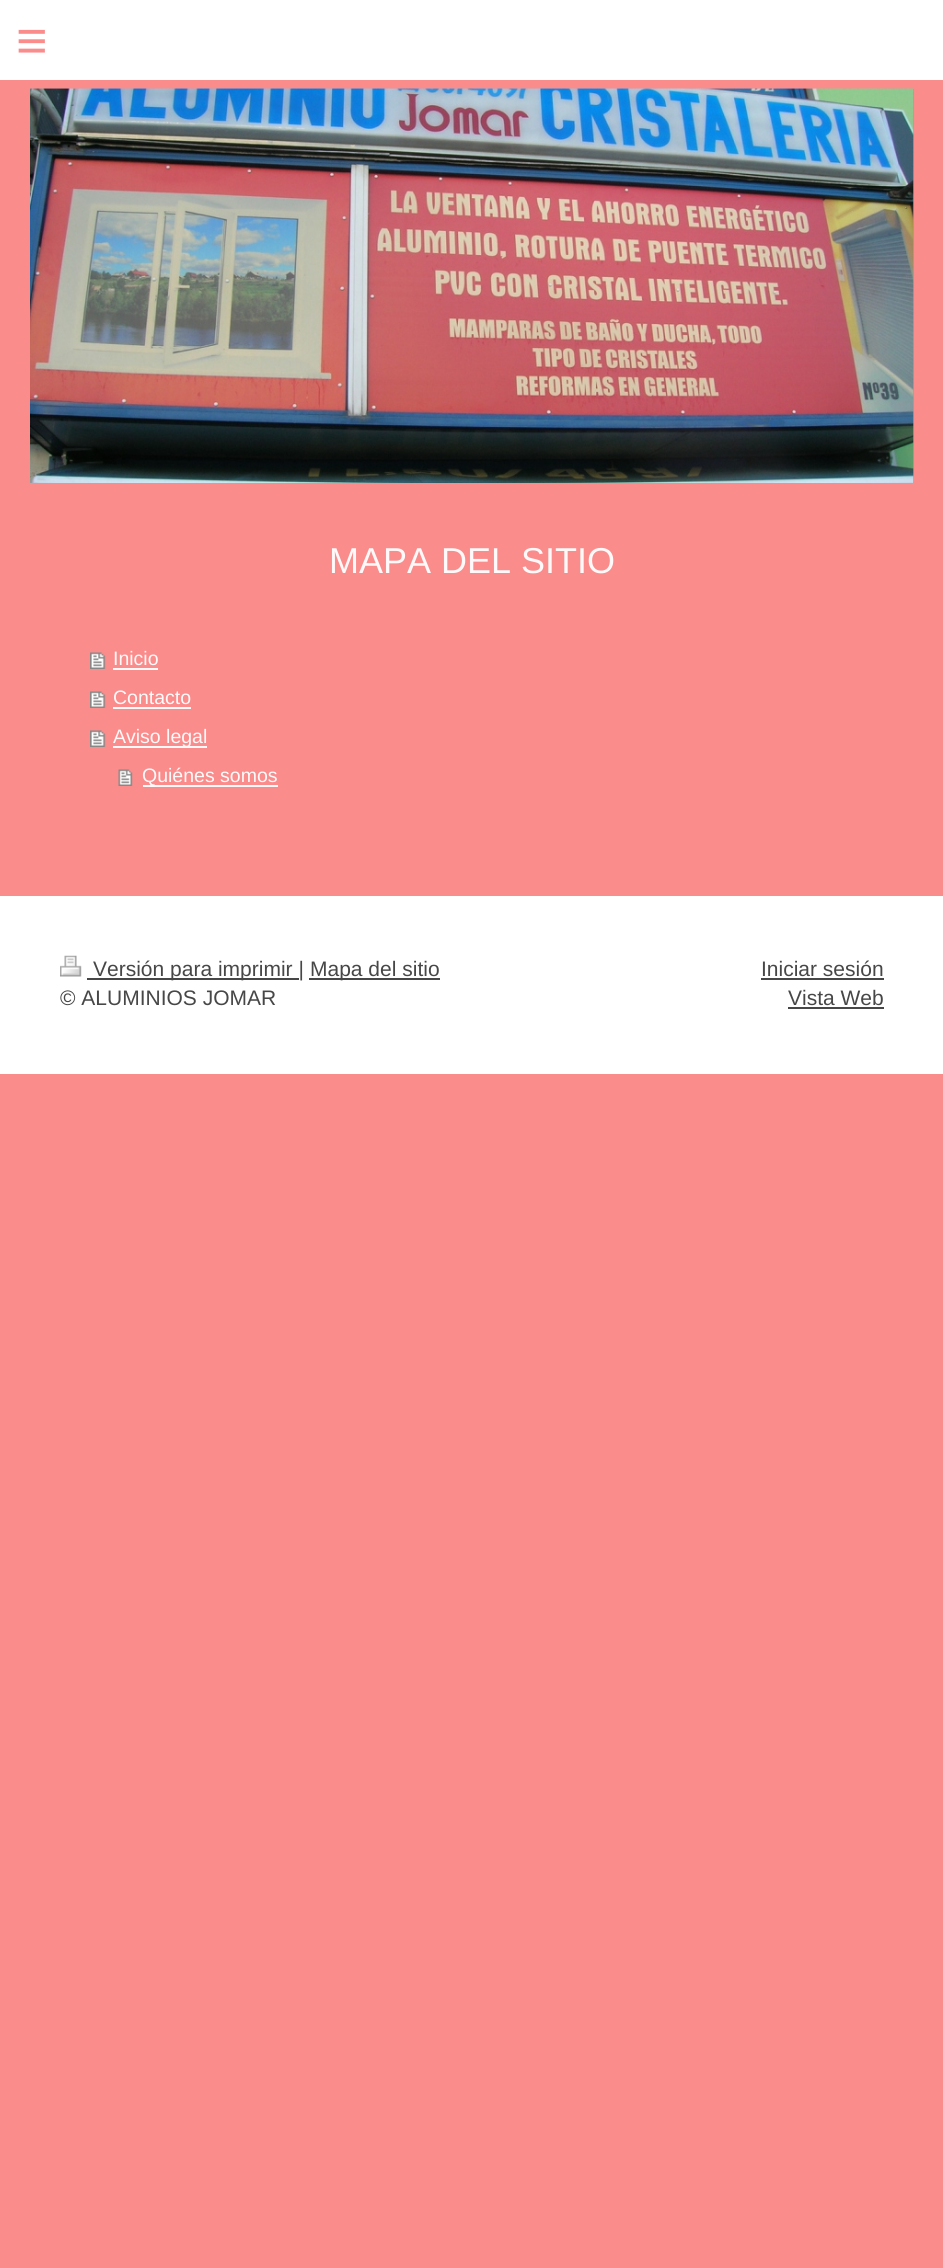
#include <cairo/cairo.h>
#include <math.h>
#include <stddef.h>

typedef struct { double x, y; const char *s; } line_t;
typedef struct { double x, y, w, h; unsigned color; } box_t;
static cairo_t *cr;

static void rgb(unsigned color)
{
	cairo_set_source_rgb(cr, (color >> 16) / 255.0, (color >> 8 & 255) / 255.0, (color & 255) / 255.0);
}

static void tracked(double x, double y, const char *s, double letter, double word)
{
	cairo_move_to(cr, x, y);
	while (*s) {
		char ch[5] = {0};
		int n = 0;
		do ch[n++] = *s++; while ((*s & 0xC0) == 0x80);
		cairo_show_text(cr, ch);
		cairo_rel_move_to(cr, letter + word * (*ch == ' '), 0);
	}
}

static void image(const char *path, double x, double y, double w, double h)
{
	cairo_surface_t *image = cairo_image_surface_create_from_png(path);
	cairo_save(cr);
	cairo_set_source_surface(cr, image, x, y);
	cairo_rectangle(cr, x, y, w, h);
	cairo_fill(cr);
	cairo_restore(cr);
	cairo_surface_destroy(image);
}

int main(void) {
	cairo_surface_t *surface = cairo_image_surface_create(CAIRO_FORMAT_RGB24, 943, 2268);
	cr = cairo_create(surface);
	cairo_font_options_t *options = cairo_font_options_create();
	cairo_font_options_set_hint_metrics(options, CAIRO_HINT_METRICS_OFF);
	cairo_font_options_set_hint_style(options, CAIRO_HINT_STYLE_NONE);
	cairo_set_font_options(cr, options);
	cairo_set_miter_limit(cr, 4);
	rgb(0xfa8c8c);
	cairo_paint(cr);
	rgb(0xffffff);
	cairo_rectangle(cr, 0, 0, 943, 80);
	cairo_fill(cr);
	image("img/1.png", 30, 88, 884, 1);
	rgb(0xa0a0a0);
	cairo_rectangle(cr, 913, 89, 1, 394);
	cairo_fill(cr);
	image("img/2.png", 30, 88, 884, 395);
	image("img/3.png", 90, 652, 16, 17);
	rgb(0xfff9f9);
	cairo_rectangle(cr, 113, 668, 45, 2);
	cairo_fill(cr);
	image("img/3.png", 90, 691, 16, 17);
	cairo_rectangle(cr, 113, 707, 78, 2);
	cairo_fill(cr);
	image("img/3.png", 90, 730, 16, 17);
	cairo_rectangle(cr, 113, 746, 94, 2);
	cairo_fill(cr);
	image("img/4.png", 118, 769, 15, 17);
	cairo_rectangle(cr, 143, 785, 135, 2);
	cairo_fill(cr);
	rgb(0xffffff);
	cairo_rectangle(cr, 0, 896, 943, 178);
	cairo_fill(cr);
	image("img/5.png", 60, 955, 22, 22);
	{
		static const box_t items[] = {
			{87, 978, 212, 2, 0x474747},
			{309, 978, 131, 2, 0x474747},
			{761, 978, 123, 2, 0x474747},
			{788, 1007, 96, 2, 0x474747},
		};
		for (size_t i = 0; i < sizeof items / sizeof *items; i++) {
			rgb(items[i].color);
			cairo_rectangle(cr, items[i].x, items[i].y, items[i].w, items[i].h);
			cairo_fill(cr);
		}
	}
	cairo_select_font_face(cr, "Liberation Sans", CAIRO_FONT_SLANT_NORMAL, CAIRO_FONT_WEIGHT_NORMAL);
	cairo_set_font_size(cr, 54);
	rgb(0xfa8c8c);
	tracked(16, 59, "≡", 16, 0);
	cairo_set_font_size(cr, 36);
	rgb(0xfff9f9);
	cairo_move_to(cr, 329, 573);
	cairo_show_text(cr, "MAPA DEL SITIO");
	cairo_set_font_size(cr, 19.5);
	{
		static const line_t items[] = {
			{113, 665, "Inicio"},
			{113, 704, "Contacto"},
			{113, 743, "Aviso legal"},
			{142, 782, "Quiénes somos"},
		};
		for (size_t i = 0; i < sizeof items / sizeof *items; i++) {
			cairo_move_to(cr, items[i].x, items[i].y);
			cairo_show_text(cr, items[i].s);
		}
	}
	cairo_set_font_size(cr, 21);
	rgb(0x474747);
	{
		static const line_t items[] = {
			{93, 976, "Versión para imprimir |"},
			{310, 976, "Mapa del sitio"},
			{60, 1005, "© ALUMINIOS JOMAR"},
			{761, 976, "Iniciar sesión"},
			{788, 1005, "Vista Web"},
		};
		for (size_t i = 0; i < sizeof items / sizeof *items; i++) {
			cairo_move_to(cr, items[i].x, items[i].y);
			cairo_show_text(cr, items[i].s);
		}
	}
	cairo_surface_write_to_png(surface, "page.png");
	cairo_font_options_destroy(options);
	cairo_destroy(cr);
	cairo_surface_destroy(surface);
	return 0;
}
